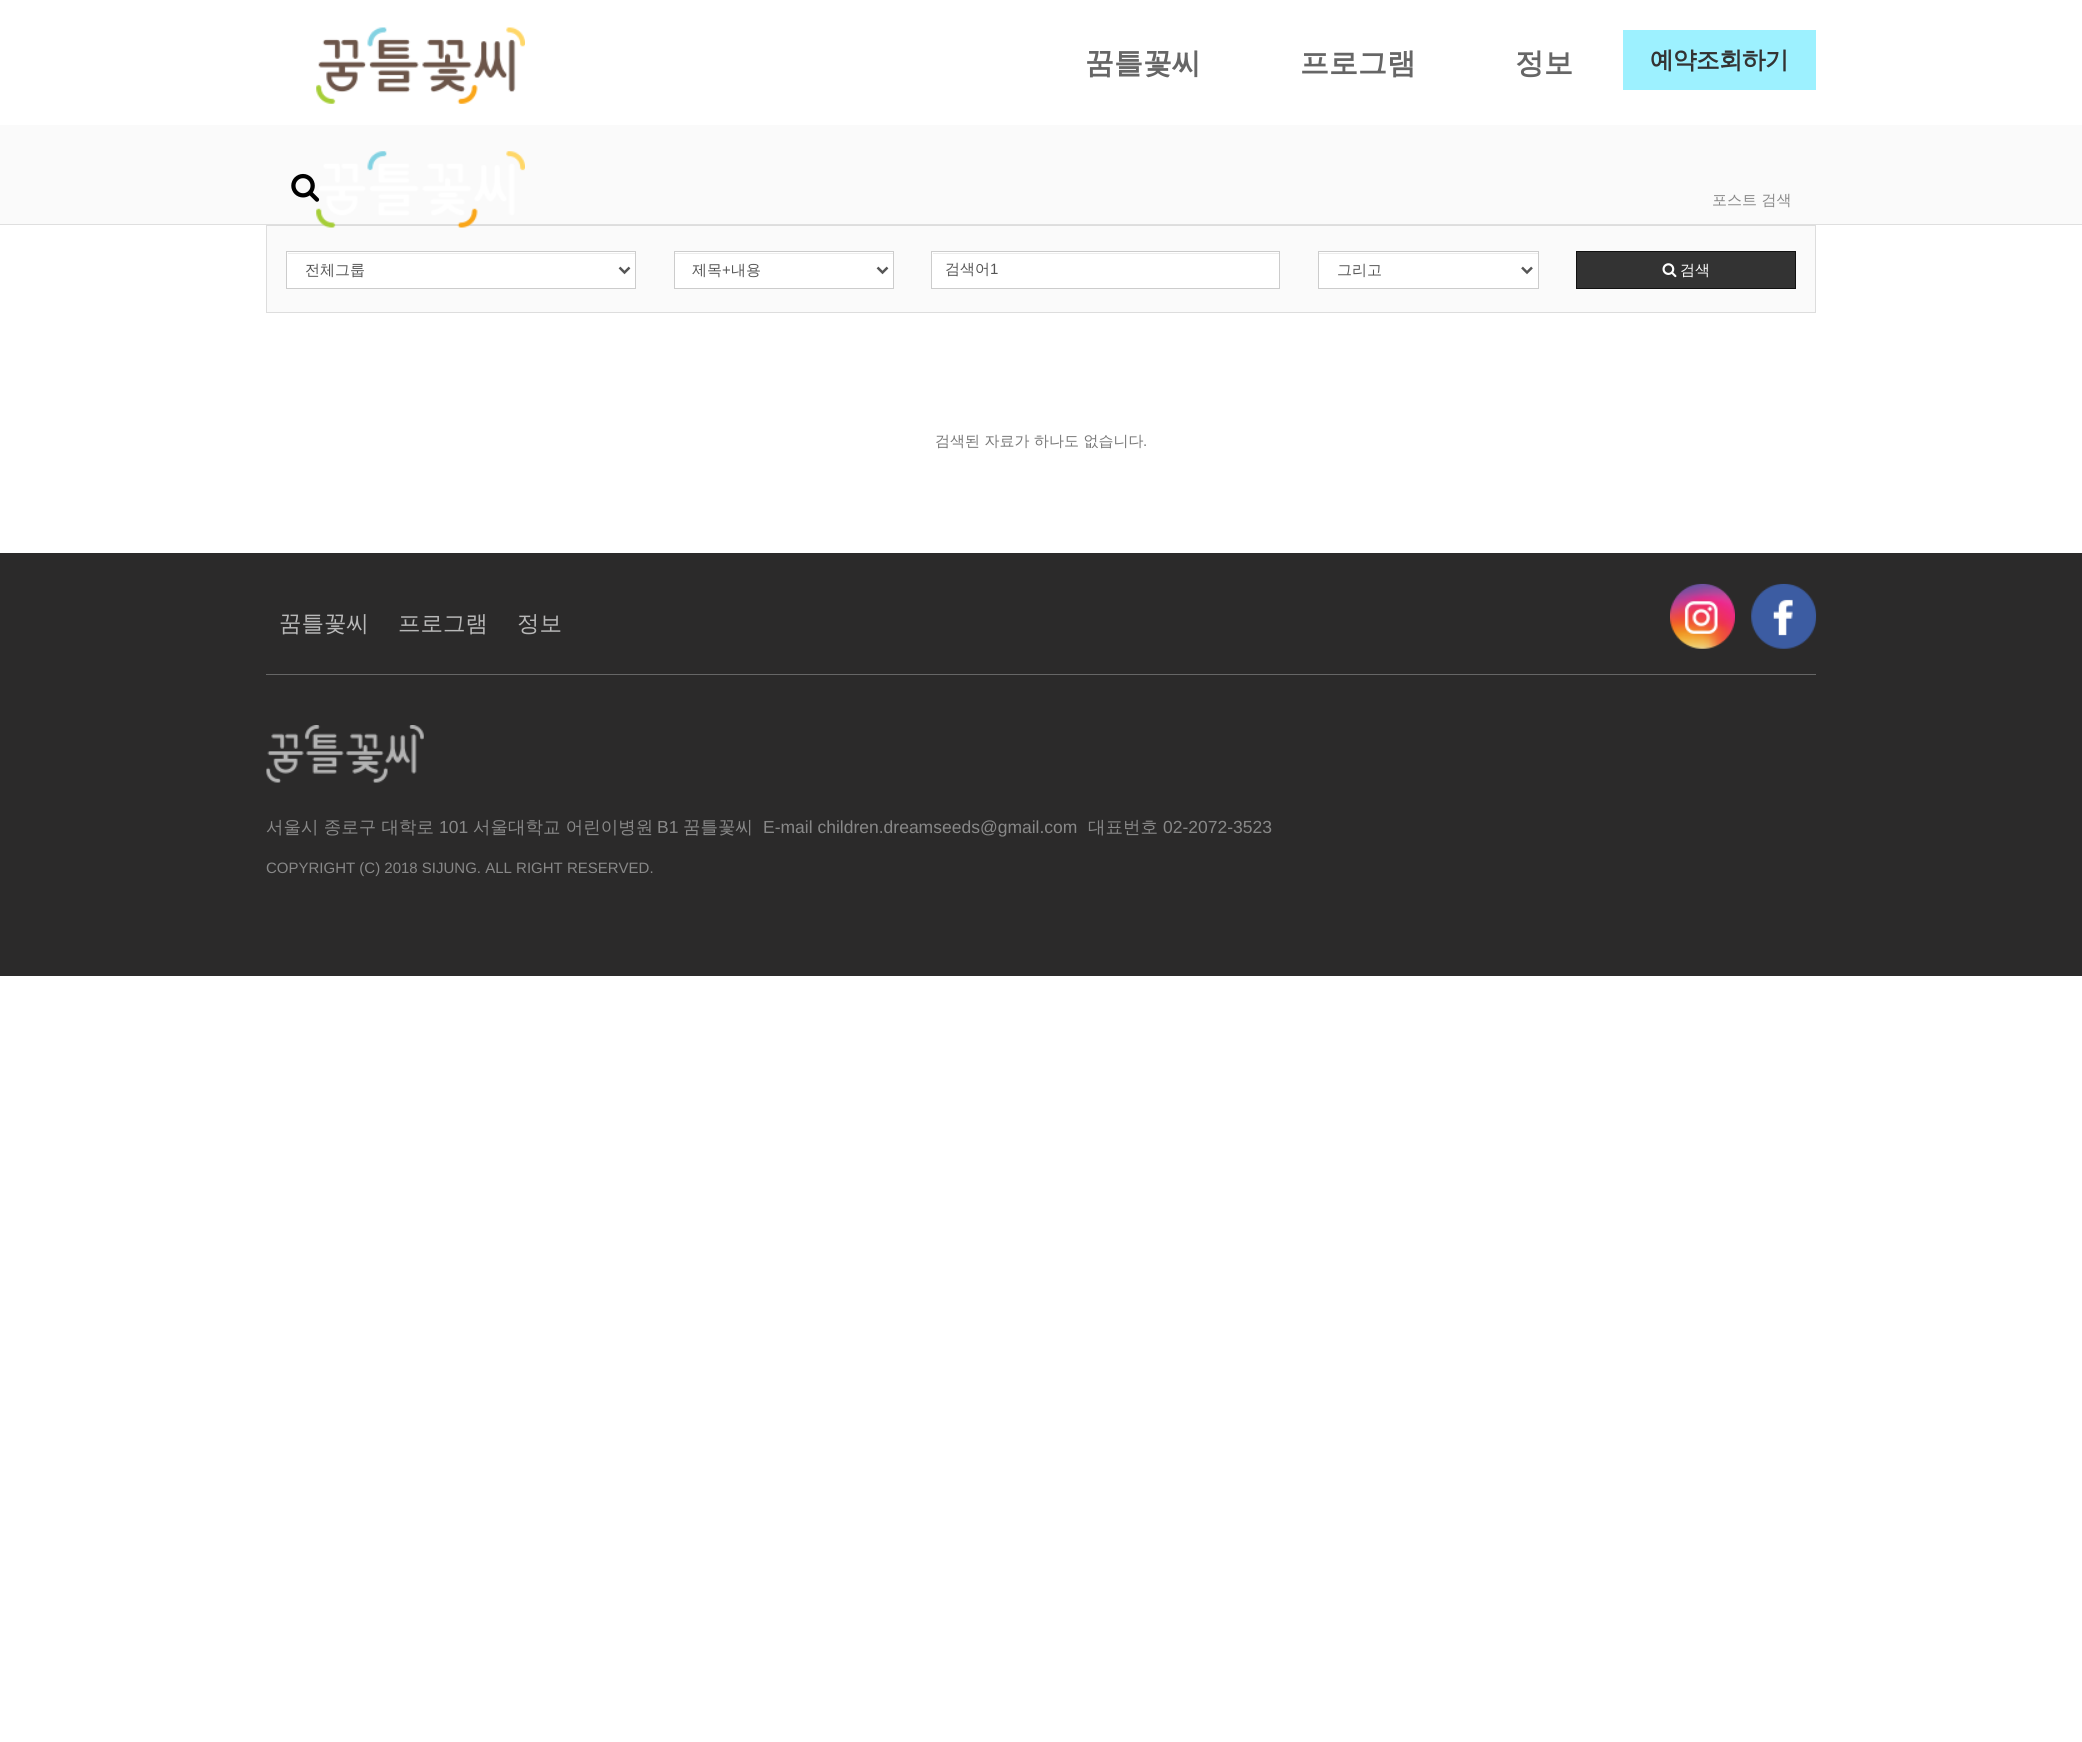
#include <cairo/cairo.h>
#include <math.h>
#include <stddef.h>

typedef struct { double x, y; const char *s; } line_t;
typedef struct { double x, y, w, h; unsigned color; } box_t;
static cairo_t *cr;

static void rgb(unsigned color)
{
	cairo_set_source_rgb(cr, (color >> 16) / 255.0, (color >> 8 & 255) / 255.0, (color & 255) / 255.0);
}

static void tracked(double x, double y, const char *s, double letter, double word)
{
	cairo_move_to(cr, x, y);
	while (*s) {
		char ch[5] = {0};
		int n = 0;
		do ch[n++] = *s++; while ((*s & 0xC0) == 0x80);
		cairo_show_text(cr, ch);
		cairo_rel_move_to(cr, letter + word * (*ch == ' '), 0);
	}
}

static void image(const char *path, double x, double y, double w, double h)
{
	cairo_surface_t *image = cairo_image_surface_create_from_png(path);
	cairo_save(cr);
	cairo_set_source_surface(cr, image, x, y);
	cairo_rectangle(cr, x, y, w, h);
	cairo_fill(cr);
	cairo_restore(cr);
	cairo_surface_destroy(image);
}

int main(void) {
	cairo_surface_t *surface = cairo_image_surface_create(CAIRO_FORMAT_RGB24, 2082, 1742);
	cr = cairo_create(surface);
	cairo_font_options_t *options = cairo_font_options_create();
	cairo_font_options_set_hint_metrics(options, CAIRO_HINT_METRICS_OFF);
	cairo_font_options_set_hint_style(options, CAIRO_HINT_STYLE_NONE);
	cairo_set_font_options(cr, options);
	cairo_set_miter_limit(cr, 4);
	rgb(0xffffff);
	cairo_paint(cr);
	image("img/1.png", 316, 27, 209, 77);
	rgb(0xfafafa);
	cairo_rectangle(cr, 0, 125, 2082, 99);
	cairo_fill(cr);
	rgb(0xdfdfdf);
	cairo_rectangle(cr, 0, 224, 2082, 1);
	cairo_fill(cr);
	image("img/3.png", 291, 173, 29, 29);
	rgb(0xfafafa);
	cairo_rectangle(cr, 266.5, 225.5, 1549, 87);
	cairo_fill_preserve(cr);
	rgb(0xdddddd);
	cairo_set_line_width(cr, 1);
	cairo_stroke(cr);
	image("img/2.png", 316, 151, 209, 77);
	{
		static const box_t items[] = {
			{1623, 30, 193, 60, 0x9df1ff},
			{287, 252, 348, 36, 0xffffff},
			{288, 253, 347, 1, 0xececec},
		};
		for (size_t i = 0; i < sizeof items / sizeof *items; i++) {
			rgb(items[i].color);
			cairo_rectangle(cr, items[i].x, items[i].y, items[i].w, items[i].h);
			cairo_fill(cr);
		}
	}
	cairo_rectangle(cr, 286.5, 251.5, 349, 37);
	rgb(0xcccccc);
	cairo_stroke(cr);
	cairo_new_path(cr);
	cairo_move_to(cr, 619.5, 267.5);
	cairo_line_to(cr, 624.5, 272.5);
	cairo_line_to(cr, 629.5, 267.5);
	rgb(0x555555);
	cairo_set_line_width(cr, 2.5);
	cairo_stroke(cr);
	rgb(0xffffff);
	cairo_rectangle(cr, 675, 252, 218, 36);
	cairo_fill(cr);
	rgb(0xececec);
	cairo_rectangle(cr, 675, 253, 218, 1);
	cairo_fill(cr);
	cairo_rectangle(cr, 674.5, 251.5, 219, 37);
	rgb(0xcccccc);
	cairo_set_line_width(cr, 1);
	cairo_stroke(cr);
	cairo_new_path(cr);
	cairo_move_to(cr, 877.5, 267.5);
	cairo_line_to(cr, 882.5, 272.5);
	cairo_line_to(cr, 887.5, 267.5);
	rgb(0x555555);
	cairo_set_line_width(cr, 2.5);
	cairo_stroke(cr);
	rgb(0xffffff);
	cairo_rectangle(cr, 932, 252, 347, 36);
	cairo_fill(cr);
	rgb(0xececec);
	cairo_rectangle(cr, 933, 253, 346, 1);
	cairo_fill(cr);
	cairo_rectangle(cr, 931.5, 251.5, 348, 37);
	rgb(0xcccccc);
	cairo_set_line_width(cr, 1);
	cairo_stroke(cr);
	rgb(0xffffff);
	cairo_rectangle(cr, 1319, 252, 219, 36);
	cairo_fill(cr);
	rgb(0xececec);
	cairo_rectangle(cr, 1319, 253, 219, 1);
	cairo_fill(cr);
	cairo_rectangle(cr, 1318.5, 251.5, 220, 37);
	rgb(0xcccccc);
	cairo_stroke(cr);
	cairo_new_path(cr);
	cairo_move_to(cr, 1522, 267.5);
	cairo_line_to(cr, 1527, 272.5);
	cairo_line_to(cr, 1532, 267.5);
	rgb(0x555555);
	cairo_set_line_width(cr, 2.5);
	cairo_stroke(cr);
	rgb(0x333333);
	cairo_rectangle(cr, 1576.5, 251.5, 219, 37);
	cairo_fill_preserve(cr);
	rgb(0x111111);
	cairo_set_line_width(cr, 1);
	cairo_stroke(cr);
	image("img/4.png", 1662, 263, 15, 15);
	rgb(0x2b2a2a);
	cairo_rectangle(cr, 0, 553, 2082, 423);
	cairo_fill(cr);
	rgb(0x666666);
	cairo_rectangle(cr, 266, 674, 1550, 1);
	cairo_fill(cr);
	image("img/5.png", 1670, 583, 65, 66);
	image("img/6.png", 1751, 583, 66, 66);
	image("img/7.png", 266, 725, 158, 58);
	cairo_select_font_face(cr, "WenQuanYi Zen Hei", CAIRO_FONT_SLANT_NORMAL, CAIRO_FONT_WEIGHT_BOLD);
	cairo_set_font_size(cr, 29);
	{
		static const line_t items[] = {
			{1085, 73, "꿈틀꽃씨"},
			{1300, 73, "프로그램"},
			{1515, 73, "정보"},
		};
		for (size_t i = 0; i < sizeof items / sizeof *items; i++) {
			cairo_move_to(cr, items[i].x, items[i].y);
			cairo_show_text(cr, items[i].s);
		}
	}
	cairo_set_font_size(cr, 23.75);
	rgb(0x333333);
	tracked(1650, 68, "예약조회하기", -0.75, 0);
	cairo_select_font_face(cr, "WenQuanYi Zen Hei Medium", CAIRO_FONT_SLANT_NORMAL, CAIRO_FONT_WEIGHT_NORMAL);
	cairo_set_font_size(cr, 15);
	rgb(0x888888);
	cairo_move_to(cr, 1712, 205);
	cairo_show_text(cr, "포스트 검색");
	rgb(0x555555);
	cairo_move_to(cr, 305, 275);
	cairo_show_text(cr, "전체그룹");
	cairo_move_to(cr, 692, 275);
	cairo_show_text(cr, "제목");
	cairo_select_font_face(cr, "Liberation Sans", CAIRO_FONT_SLANT_NORMAL, CAIRO_FONT_WEIGHT_NORMAL);
	cairo_move_to(cr, 722, 275);
	cairo_show_text(cr, "+");
	cairo_select_font_face(cr, "WenQuanYi Zen Hei Medium", CAIRO_FONT_SLANT_NORMAL, CAIRO_FONT_WEIGHT_NORMAL);
	cairo_move_to(cr, 731, 275);
	cairo_show_text(cr, "내용");
	cairo_move_to(cr, 945, 274);
	cairo_show_text(cr, "검색어");
	cairo_select_font_face(cr, "Liberation Sans", CAIRO_FONT_SLANT_NORMAL, CAIRO_FONT_WEIGHT_NORMAL);
	cairo_move_to(cr, 990, 274);
	cairo_show_text(cr, "1");
	cairo_select_font_face(cr, "WenQuanYi Zen Hei Medium", CAIRO_FONT_SLANT_NORMAL, CAIRO_FONT_WEIGHT_NORMAL);
	cairo_move_to(cr, 1337, 275);
	cairo_show_text(cr, "그리고");
	rgb(0xffffff);
	cairo_move_to(cr, 1680, 275);
	cairo_show_text(cr, "검색");
	rgb(0x777777);
	cairo_move_to(cr, 935, 446);
	cairo_show_text(cr, "검색된 자료가 하나도 없습니다");
	cairo_select_font_face(cr, "Liberation Sans", CAIRO_FONT_SLANT_NORMAL, CAIRO_FONT_WEIGHT_NORMAL);
	cairo_move_to(cr, 1143, 446);
	cairo_show_text(cr, ".");
	cairo_select_font_face(cr, "WenQuanYi Zen Hei Medium", CAIRO_FONT_SLANT_NORMAL, CAIRO_FONT_WEIGHT_NORMAL);
	cairo_set_font_size(cr, 22.5);
	rgb(0xb8b8b8);
	{
		static const line_t items[] = {
			{279, 631, "꿈틀꽃씨"},
			{398, 631, "프로그램"},
			{517, 631, "정보"},
		};
		for (size_t i = 0; i < sizeof items / sizeof *items; i++) {
			cairo_move_to(cr, items[i].x, items[i].y);
			cairo_show_text(cr, items[i].s);
		}
	}
	cairo_set_font_size(cr, 17.5);
	rgb(0x888888);
	cairo_move_to(cr, 266, 833);
	cairo_show_text(cr, "서울시 종로구 대학로");
	cairo_select_font_face(cr, "Liberation Sans", CAIRO_FONT_SLANT_NORMAL, CAIRO_FONT_WEIGHT_NORMAL);
	cairo_move_to(cr, 439, 833);
	cairo_show_text(cr, "101");
	cairo_select_font_face(cr, "WenQuanYi Zen Hei Medium", CAIRO_FONT_SLANT_NORMAL, CAIRO_FONT_WEIGHT_NORMAL);
	cairo_move_to(cr, 473, 833);
	cairo_show_text(cr, "서울대학교 어린이병원");
	cairo_select_font_face(cr, "Liberation Sans", CAIRO_FONT_SLANT_NORMAL, CAIRO_FONT_WEIGHT_NORMAL);
	cairo_move_to(cr, 657, 833);
	cairo_show_text(cr, "B1");
	cairo_select_font_face(cr, "WenQuanYi Zen Hei Medium", CAIRO_FONT_SLANT_NORMAL, CAIRO_FONT_WEIGHT_NORMAL);
	cairo_move_to(cr, 683, 833);
	cairo_show_text(cr, "꿈틀꽃씨");
	cairo_select_font_face(cr, "Liberation Sans", CAIRO_FONT_SLANT_NORMAL, CAIRO_FONT_WEIGHT_NORMAL);
	cairo_move_to(cr, 763, 833);
	cairo_show_text(cr, "E-mail children.dreamseeds@gmail.com");
	cairo_select_font_face(cr, "WenQuanYi Zen Hei Medium", CAIRO_FONT_SLANT_NORMAL, CAIRO_FONT_WEIGHT_NORMAL);
	cairo_move_to(cr, 1088, 833);
	cairo_show_text(cr, "대표번호");
	cairo_select_font_face(cr, "Liberation Sans", CAIRO_FONT_SLANT_NORMAL, CAIRO_FONT_WEIGHT_NORMAL);
	cairo_move_to(cr, 1163, 833);
	cairo_show_text(cr, "02-2072-3523");
	cairo_set_font_size(cr, 15);
	cairo_move_to(cr, 266, 873);
	cairo_show_text(cr, "COPYRIGHT (C) 2018 SIJUNG. ALL RIGHT RESERVED.");
	cairo_surface_write_to_png(surface, "page.png");
	cairo_font_options_destroy(options);
	cairo_destroy(cr);
	cairo_surface_destroy(surface);
	return 0;
}
